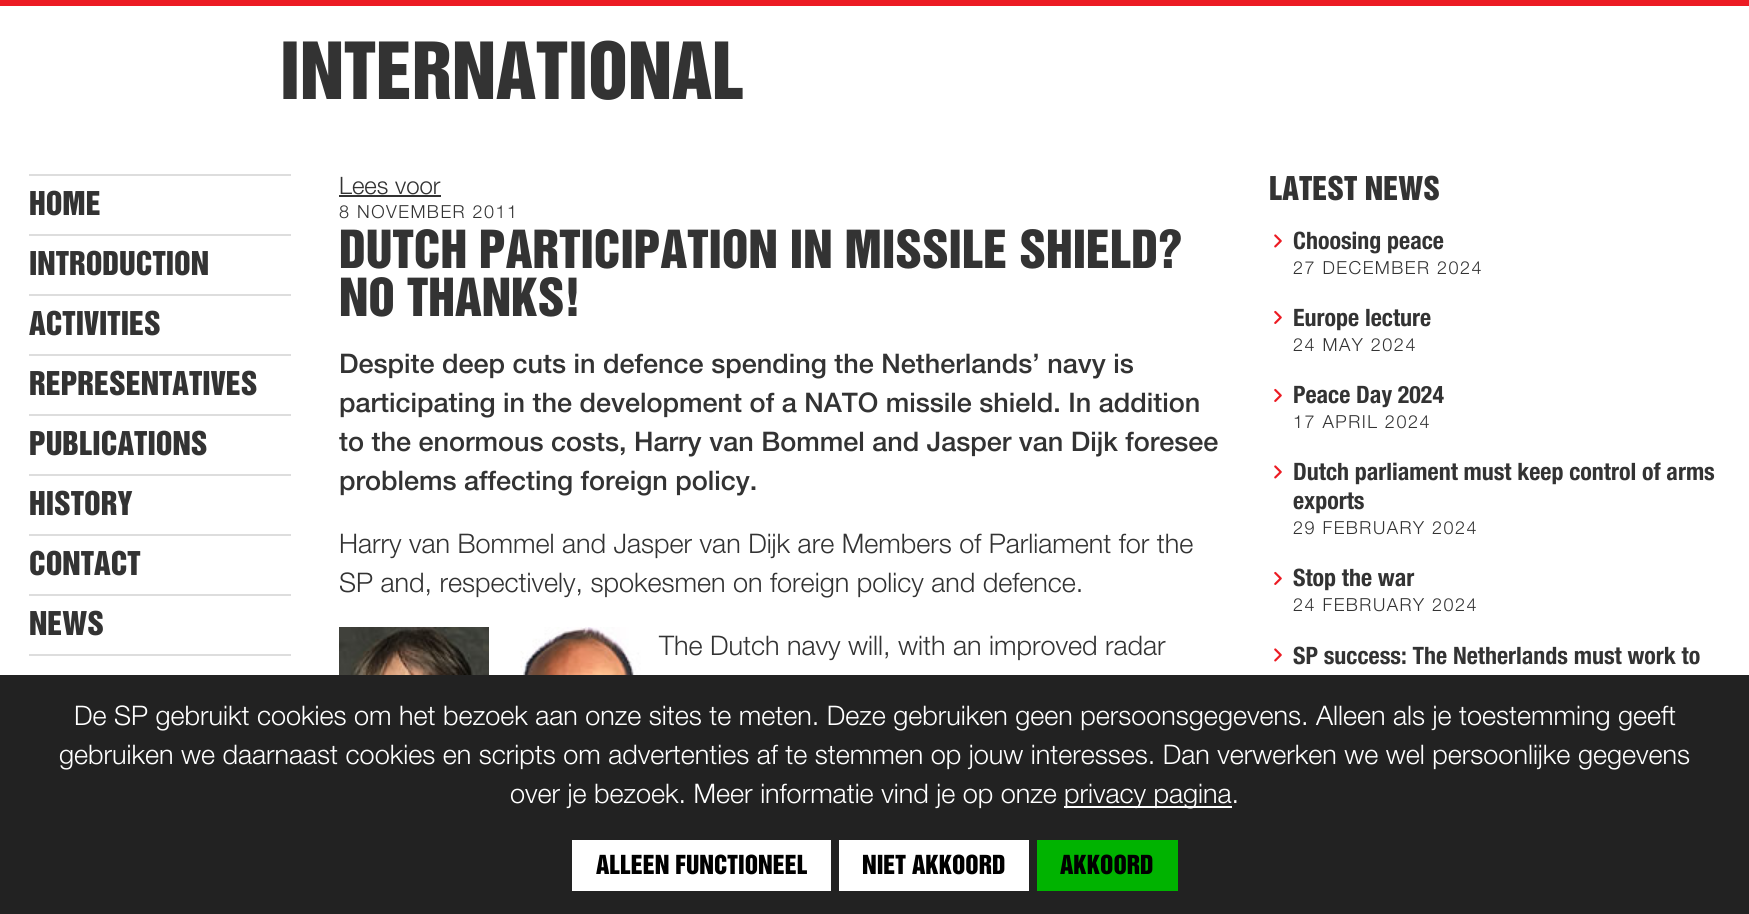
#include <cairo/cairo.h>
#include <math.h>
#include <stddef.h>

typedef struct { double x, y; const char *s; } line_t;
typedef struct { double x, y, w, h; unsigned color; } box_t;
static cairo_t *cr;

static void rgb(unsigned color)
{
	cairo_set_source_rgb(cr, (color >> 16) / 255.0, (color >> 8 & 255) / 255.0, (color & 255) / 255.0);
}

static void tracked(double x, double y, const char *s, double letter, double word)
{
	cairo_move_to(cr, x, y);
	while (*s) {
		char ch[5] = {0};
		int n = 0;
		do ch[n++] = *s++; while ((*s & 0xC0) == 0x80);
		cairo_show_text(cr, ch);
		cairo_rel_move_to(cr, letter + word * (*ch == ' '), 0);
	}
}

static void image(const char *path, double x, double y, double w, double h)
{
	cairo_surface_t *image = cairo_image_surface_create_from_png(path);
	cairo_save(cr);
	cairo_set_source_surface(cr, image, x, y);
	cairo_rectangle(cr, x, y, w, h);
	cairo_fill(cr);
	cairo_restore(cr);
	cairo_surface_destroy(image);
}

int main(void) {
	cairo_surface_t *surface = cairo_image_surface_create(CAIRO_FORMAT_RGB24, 1749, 914);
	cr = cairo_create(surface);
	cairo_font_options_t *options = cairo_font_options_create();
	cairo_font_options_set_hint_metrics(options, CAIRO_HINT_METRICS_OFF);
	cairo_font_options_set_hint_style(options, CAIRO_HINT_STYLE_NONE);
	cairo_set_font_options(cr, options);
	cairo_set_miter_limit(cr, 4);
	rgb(0xffffff);
	cairo_paint(cr);
	{
		static const box_t items[] = {
			{0, 0, 1749, 6, 0xec1b23},
			{29, 654, 262, 2, 0xdddddd},
			{29, 174, 262, 2, 0xdddddd},
			{29, 234, 262, 2, 0xdddddd},
			{29, 294, 262, 2, 0xdddddd},
			{29, 354, 262, 2, 0xdddddd},
			{29, 414, 262, 2, 0xdddddd},
			{29, 474, 262, 2, 0xdddddd},
			{29, 534, 262, 2, 0xdddddd},
			{29, 594, 262, 2, 0xdddddd},
			{339, 195, 102, 2, 0x333333},
		};
		for (size_t i = 0; i < sizeof items / sizeof *items; i++) {
			rgb(items[i].color);
			cairo_rectangle(cr, items[i].x, items[i].y, items[i].w, items[i].h);
			cairo_fill(cr);
		}
	}
	image("img/1.png", 339, 627, 150, 48);
	image("img/2.png", 496, 627, 151, 48);
	image("img/3.png", 1274, 234, 8, 14);
	image("img/4.png", 1274, 310, 8, 14);
	image("img/4.png", 1274, 388, 8, 14);
	image("img/3.png", 1274, 465, 8, 14);
	image("img/4.png", 1274, 571, 8, 14);
	image("img/3.png", 1274, 648, 8, 14);
	{
		static const box_t items[] = {
			{0, 675, 1749, 239, 0x222222},
			{1064, 806, 168, 2, 0xffffff},
			{572, 840, 259, 51, 0xffffff},
			{839, 840, 190, 51, 0xffffff},
			{1037, 840, 141, 51, 0x00b300},
		};
		for (size_t i = 0; i < sizeof items / sizeof *items; i++) {
			rgb(items[i].color);
			cairo_rectangle(cr, items[i].x, items[i].y, items[i].w, items[i].h);
			cairo_fill(cr);
		}
	}
	cairo_select_font_face(cr, "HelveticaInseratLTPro", CAIRO_FONT_SLANT_NORMAL, CAIRO_FONT_WEIGHT_NORMAL);
	cairo_set_font_size(cr, 72);
	rgb(0x333333);
	cairo_move_to(cr, 280, 99);
	cairo_show_text(cr, "INTERNATIONAL");
	cairo_set_font_size(cr, 30);
	{
		static const line_t items[] = {
			{29, 215, "HOME"},
			{29, 275, "INTRODUCTION"},
			{29, 335, "ACTIVITIES"},
			{29, 395, "REPRESENTATIVES"},
			{29, 455, "PUBLICATIONS"},
			{29, 515, "HISTORY"},
			{29, 575, "CONTACT"},
			{29, 635, "NEWS"},
		};
		for (size_t i = 0; i < sizeof items / sizeof *items; i++) {
			cairo_move_to(cr, items[i].x, items[i].y);
			cairo_show_text(cr, items[i].s);
		}
	}
	cairo_select_font_face(cr, "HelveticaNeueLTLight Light", CAIRO_FONT_SLANT_NORMAL, CAIRO_FONT_WEIGHT_NORMAL);
	cairo_set_font_size(cr, 24);
	cairo_move_to(cr, 339, 194);
	cairo_show_text(cr, "Lees voor");
	cairo_set_font_size(cr, 18);
	tracked(339, 218, "8 NOVEMBER 2011", 1.5, 0);
	cairo_select_font_face(cr, "HelveticaInseratLTPro", CAIRO_FONT_SLANT_NORMAL, CAIRO_FONT_WEIGHT_NORMAL);
	cairo_set_font_size(cr, 48);
	cairo_move_to(cr, 339, 268);
	cairo_show_text(cr, "DUTCH PARTICIPATION IN MISSILE SHIELD?");
	cairo_move_to(cr, 339, 316);
	cairo_show_text(cr, "NO THANKS!");
	cairo_select_font_face(cr, "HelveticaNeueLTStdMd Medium", CAIRO_FONT_SLANT_NORMAL, CAIRO_FONT_WEIGHT_NORMAL);
	cairo_set_font_size(cr, 27);
	{
		static const line_t items[] = {
			{339, 373, "Despite deep cuts in defence spending the Netherlands’ navy is"},
			{339, 412, "participating in the development of a NATO missile shield. In addition"},
			{339, 451, "to the enormous costs, Harry van Bommel and Jasper van Dijk foresee"},
			{339, 490, "problems affecting foreign policy."},
		};
		for (size_t i = 0; i < sizeof items / sizeof *items; i++) {
			cairo_move_to(cr, items[i].x, items[i].y);
			cairo_show_text(cr, items[i].s);
		}
	}
	cairo_select_font_face(cr, "HelveticaNeueLTLight Light", CAIRO_FONT_SLANT_NORMAL, CAIRO_FONT_WEIGHT_NORMAL);
	{
		static const line_t items[] = {
			{339, 553, "Harry van Bommel and Jasper van Dijk are Members of Parliament for the"},
			{339, 592, "SP and, respectively, spokesmen on foreign policy and defence."},
			{659, 655, "The Dutch navy will, with an improved radar"},
		};
		for (size_t i = 0; i < sizeof items / sizeof *items; i++) {
			cairo_move_to(cr, items[i].x, items[i].y);
			cairo_show_text(cr, items[i].s);
		}
	}
	cairo_select_font_face(cr, "HelveticaInseratLTPro", CAIRO_FONT_SLANT_NORMAL, CAIRO_FONT_WEIGHT_NORMAL);
	cairo_set_font_size(cr, 30);
	cairo_move_to(cr, 1269, 200);
	cairo_show_text(cr, "LATEST NEWS");
	cairo_select_font_face(cr, "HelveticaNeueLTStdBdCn", CAIRO_FONT_SLANT_NORMAL, CAIRO_FONT_WEIGHT_NORMAL);
	cairo_set_font_size(cr, 24);
	cairo_move_to(cr, 1293, 249);
	cairo_show_text(cr, "Choosing peace");
	cairo_select_font_face(cr, "HelveticaNeueLTLight Light", CAIRO_FONT_SLANT_NORMAL, CAIRO_FONT_WEIGHT_NORMAL);
	cairo_set_font_size(cr, 18);
	tracked(1293, 274, "27 DECEMBER 2024", 1.5, 0);
	cairo_select_font_face(cr, "HelveticaNeueLTStdBdCn", CAIRO_FONT_SLANT_NORMAL, CAIRO_FONT_WEIGHT_NORMAL);
	cairo_set_font_size(cr, 24);
	cairo_move_to(cr, 1293, 326);
	cairo_show_text(cr, "Europe lecture");
	cairo_select_font_face(cr, "HelveticaNeueLTLight Light", CAIRO_FONT_SLANT_NORMAL, CAIRO_FONT_WEIGHT_NORMAL);
	cairo_set_font_size(cr, 18);
	tracked(1293, 351, "24 MAY 2024", 1.5, 0);
	cairo_select_font_face(cr, "HelveticaNeueLTStdBdCn", CAIRO_FONT_SLANT_NORMAL, CAIRO_FONT_WEIGHT_NORMAL);
	cairo_set_font_size(cr, 24);
	cairo_move_to(cr, 1293, 403);
	cairo_show_text(cr, "Peace Day 2024");
	cairo_select_font_face(cr, "HelveticaNeueLTLight Light", CAIRO_FONT_SLANT_NORMAL, CAIRO_FONT_WEIGHT_NORMAL);
	cairo_set_font_size(cr, 18);
	tracked(1293, 428, "17 APRIL 2024", 1.5, 0);
	cairo_select_font_face(cr, "HelveticaNeueLTStdBdCn", CAIRO_FONT_SLANT_NORMAL, CAIRO_FONT_WEIGHT_NORMAL);
	cairo_set_font_size(cr, 24);
	cairo_move_to(cr, 1293, 480);
	cairo_show_text(cr, "Dutch parliament must keep control of arms");
	cairo_move_to(cr, 1293, 509);
	cairo_show_text(cr, "exports");
	cairo_select_font_face(cr, "HelveticaNeueLTLight Light", CAIRO_FONT_SLANT_NORMAL, CAIRO_FONT_WEIGHT_NORMAL);
	cairo_set_font_size(cr, 18);
	tracked(1293, 534, "29 FEBRUARY 2024", 1.5, 0);
	cairo_select_font_face(cr, "HelveticaNeueLTStdBdCn", CAIRO_FONT_SLANT_NORMAL, CAIRO_FONT_WEIGHT_NORMAL);
	cairo_set_font_size(cr, 24);
	cairo_move_to(cr, 1293, 586);
	cairo_show_text(cr, "Stop the war");
	cairo_select_font_face(cr, "HelveticaNeueLTLight Light", CAIRO_FONT_SLANT_NORMAL, CAIRO_FONT_WEIGHT_NORMAL);
	cairo_set_font_size(cr, 18);
	tracked(1293, 611, "24 FEBRUARY 2024", 1.5, 0);
	cairo_select_font_face(cr, "HelveticaNeueLTStdBdCn", CAIRO_FONT_SLANT_NORMAL, CAIRO_FONT_WEIGHT_NORMAL);
	cairo_set_font_size(cr, 24);
	cairo_move_to(cr, 1293, 664);
	cairo_show_text(cr, "SP success: The Netherlands must work to");
	cairo_select_font_face(cr, "HelveticaNeueLTLight Light", CAIRO_FONT_SLANT_NORMAL, CAIRO_FONT_WEIGHT_NORMAL);
	cairo_set_font_size(cr, 27);
	rgb(0xffffff);
	{
		static const line_t items[] = {
			{74, 725, "De SP gebruikt cookies om het bezoek aan onze sites te meten. Deze gebruiken geen persoonsgegevens. Alleen als je toestemming geeft"},
			{59, 764, "gebruiken we daarnaast cookies en scripts om advertenties af te stemmen op jouw interesses. Dan verwerken we wel persoonlijke gegevens"},
			{510, 803, "over je bezoek. Meer informatie vind je op onze"},
			{1064, 803, "privacy pagina."},
		};
		for (size_t i = 0; i < sizeof items / sizeof *items; i++) {
			cairo_move_to(cr, items[i].x, items[i].y);
			cairo_show_text(cr, items[i].s);
		}
	}
	cairo_select_font_face(cr, "HelveticaInseratLTPro", CAIRO_FONT_SLANT_NORMAL, CAIRO_FONT_WEIGHT_NORMAL);
	cairo_set_font_size(cr, 24);
	rgb(0x000000);
	{
		static const line_t items[] = {
			{596, 874, "ALLEEN FUNCTIONEEL"},
			{862, 874, "NIET AKKOORD"},
			{1060, 874, "AKKOORD"},
		};
		for (size_t i = 0; i < sizeof items / sizeof *items; i++) {
			cairo_move_to(cr, items[i].x, items[i].y);
			cairo_show_text(cr, items[i].s);
		}
	}
	cairo_surface_write_to_png(surface, "page.png");
	cairo_font_options_destroy(options);
	cairo_destroy(cr);
	cairo_surface_destroy(surface);
	return 0;
}
